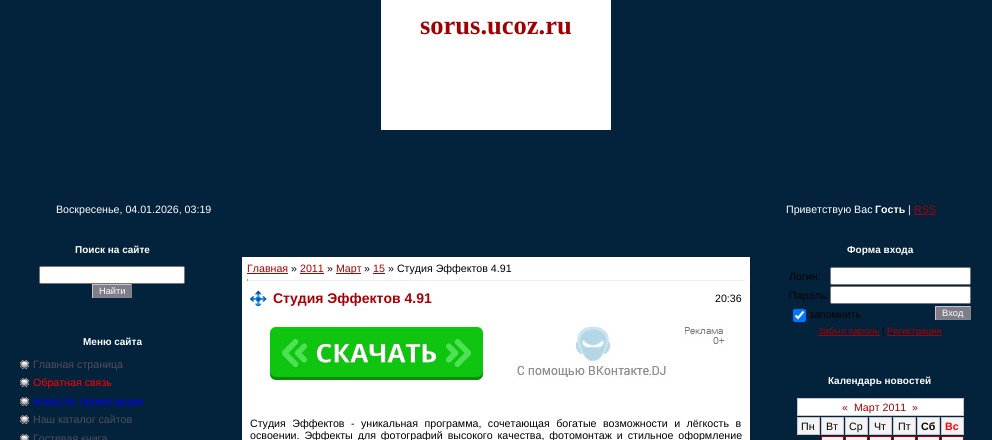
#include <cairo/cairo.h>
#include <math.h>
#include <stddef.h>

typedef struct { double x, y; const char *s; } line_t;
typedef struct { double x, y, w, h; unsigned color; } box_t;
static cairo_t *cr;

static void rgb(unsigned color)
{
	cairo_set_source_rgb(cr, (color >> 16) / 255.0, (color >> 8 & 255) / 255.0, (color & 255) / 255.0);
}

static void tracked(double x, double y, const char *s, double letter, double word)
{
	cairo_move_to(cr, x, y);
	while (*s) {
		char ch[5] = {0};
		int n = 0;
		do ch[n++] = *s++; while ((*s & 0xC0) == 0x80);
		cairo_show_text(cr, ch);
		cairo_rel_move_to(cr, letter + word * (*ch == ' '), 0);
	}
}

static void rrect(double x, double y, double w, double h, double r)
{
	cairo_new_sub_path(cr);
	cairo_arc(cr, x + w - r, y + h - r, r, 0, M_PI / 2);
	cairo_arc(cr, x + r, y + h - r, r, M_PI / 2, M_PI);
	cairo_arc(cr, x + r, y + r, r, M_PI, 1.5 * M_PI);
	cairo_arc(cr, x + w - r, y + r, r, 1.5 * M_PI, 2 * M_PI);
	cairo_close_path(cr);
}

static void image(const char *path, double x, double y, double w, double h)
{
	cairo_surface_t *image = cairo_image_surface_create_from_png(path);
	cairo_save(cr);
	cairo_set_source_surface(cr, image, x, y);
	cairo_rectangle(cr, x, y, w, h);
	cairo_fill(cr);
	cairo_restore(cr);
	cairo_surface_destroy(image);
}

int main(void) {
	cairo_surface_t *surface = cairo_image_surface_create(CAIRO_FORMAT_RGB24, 992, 440);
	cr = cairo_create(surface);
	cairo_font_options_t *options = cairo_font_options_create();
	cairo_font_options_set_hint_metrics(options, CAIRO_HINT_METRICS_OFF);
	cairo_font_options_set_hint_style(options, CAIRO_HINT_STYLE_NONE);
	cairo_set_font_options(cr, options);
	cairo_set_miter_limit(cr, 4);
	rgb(0x03223c);
	cairo_paint(cr);
	rgb(0xffffff);
	cairo_rectangle(cr, 381, 0, 230, 130);
	cairo_fill(cr);
	rgb(0xa70003);
	cairo_rectangle(cr, 914, 214, 22, 1);
	cairo_fill(cr);
	rgb(0xffffff);
	rrect(39.5, 266.5, 145, 17, 1.5);
	cairo_fill_preserve(cr);
	rgb(0x767676);
	cairo_set_line_width(cr, 1);
	cairo_stroke(cr);
	{
		static const box_t items[] = {
			{93, 285, 38, 12, 0x807d8a},
			{92, 284, 40, 1, 0xc8c6cb},
			{131, 284, 1, 14, 0x858487},
			{92, 297, 40, 1, 0x858487},
			{92, 284, 1, 14, 0xc8c6cb},
		};
		for (size_t i = 0; i < sizeof items / sizeof *items; i++) {
			rgb(items[i].color);
			cairo_rectangle(cr, items[i].x, items[i].y, items[i].w, items[i].h);
			cairo_fill(cr);
		}
	}
	image("img/1.png", 20, 360, 9, 9);
	image("img/1.png", 20, 378, 9, 9);
	image("img/1.png", 20, 397, 9, 9);
	image("img/1.png", 20, 415, 9, 9);
	image("img/2.png", 20, 434, 9, 6);
	{
		static const box_t items[] = {
			{242, 257, 508, 183, 0xffffff},
			{247, 273, 41, 1, 0xa70003},
			{300, 273, 24, 1, 0xa70003},
			{336, 273, 25, 1, 0xa70003},
			{373, 273, 12, 1, 0xa70003},
			{744, 279, 1, 2, 0xeeeeee},
			{247, 280, 498, 1, 0xeeeeee},
			{247, 279, 1, 2, 0x9f9f9f},
		};
		for (size_t i = 0; i < sizeof items / sizeof *items; i++) {
			rgb(items[i].color);
			cairo_rectangle(cr, items[i].x, items[i].y, items[i].w, items[i].h);
			cairo_fill(cr);
		}
	}
	image("img/3.png", 250, 290, 17, 16);
	image("img/4.png", 264, 323, 463, 60);
	rgb(0xffffff);
	rrect(830.5, 267.5, 140, 17, 1.5);
	cairo_fill_preserve(cr);
	rgb(0x767676);
	cairo_stroke(cr);
	rgb(0xffffff);
	rrect(830.5, 286.5, 140, 17, 1.5);
	cairo_fill_preserve(cr);
	rgb(0x767676);
	cairo_stroke(cr);
	rgb(0x0075ff);
	rrect(793, 309, 13, 13, 2);
	cairo_fill(cr);
	cairo_new_path(cr);
	cairo_move_to(cr, 795.5, 315.5);
	cairo_line_to(cr, 798, 318);
	cairo_line_to(cr, 803.5, 311.5);
	rgb(0xffffff);
	cairo_set_line_width(cr, 2.1);
	cairo_stroke(cr);
	{
		static const box_t items[] = {
			{936, 307, 34, 12, 0x807d8a},
			{935, 306, 36, 1, 0xc8c6cb},
			{970, 306, 1, 14, 0x858487},
			{935, 319, 36, 1, 0x858487},
			{935, 306, 1, 14, 0xc8c6cb},
			{818, 335, 62, 1, 0xa70003},
			{887, 335, 55, 1, 0xa70003},
		};
		for (size_t i = 0; i < sizeof items / sizeof *items; i++) {
			rgb(items[i].color);
			cairo_rectangle(cr, items[i].x, items[i].y, items[i].w, items[i].h);
			cairo_fill(cr);
		}
	}
	rgb(0xffffff);
	cairo_rectangle(cr, 797.5, 398.5, 166, 17);
	cairo_fill_preserve(cr);
	rgb(0xc8c6cb);
	cairo_set_line_width(cr, 1);
	cairo_stroke(cr);
	rgb(0xf3f2f4);
	cairo_rectangle(cr, 797.5, 417.5, 22, 17);
	cairo_fill_preserve(cr);
	rgb(0xc8c6cb);
	cairo_stroke(cr);
	rgb(0xf3f2f4);
	cairo_rectangle(cr, 821.5, 417.5, 22, 17);
	cairo_fill_preserve(cr);
	rgb(0xc8c6cb);
	cairo_stroke(cr);
	rgb(0xf3f2f4);
	cairo_rectangle(cr, 845.5, 417.5, 22, 17);
	cairo_fill_preserve(cr);
	rgb(0xc8c6cb);
	cairo_stroke(cr);
	rgb(0xf3f2f4);
	cairo_rectangle(cr, 869.5, 417.5, 22, 17);
	cairo_fill_preserve(cr);
	rgb(0xc8c6cb);
	cairo_stroke(cr);
	rgb(0xf3f2f4);
	cairo_rectangle(cr, 893.5, 417.5, 22, 17);
	cairo_fill_preserve(cr);
	rgb(0xc8c6cb);
	cairo_stroke(cr);
	rgb(0xf3f2f4);
	cairo_rectangle(cr, 917.5, 417.5, 22, 17);
	cairo_fill_preserve(cr);
	rgb(0xc8c6cb);
	cairo_stroke(cr);
	rgb(0xf3f2f4);
	cairo_rectangle(cr, 941.5, 417.5, 22, 17);
	cairo_fill_preserve(cr);
	rgb(0xc8c6cb);
	cairo_stroke(cr);
	rgb(0xf3f2f4);
	cairo_rectangle(cr, 821.5, 436.5, 22, 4);
	cairo_fill_preserve(cr);
	rgb(0xa70003);
	cairo_stroke(cr);
	rgb(0xf3f2f4);
	cairo_rectangle(cr, 845.5, 436.5, 22, 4);
	cairo_fill_preserve(cr);
	rgb(0xa70003);
	cairo_stroke(cr);
	rgb(0xf3f2f4);
	cairo_rectangle(cr, 869.5, 436.5, 22, 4);
	cairo_fill_preserve(cr);
	rgb(0xa70003);
	cairo_stroke(cr);
	rgb(0xf3f2f4);
	cairo_rectangle(cr, 893.5, 436.5, 22, 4);
	cairo_fill_preserve(cr);
	rgb(0xa70003);
	cairo_stroke(cr);
	rgb(0xf3f2f4);
	cairo_rectangle(cr, 917.5, 436.5, 22, 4);
	cairo_fill_preserve(cr);
	rgb(0xa70003);
	cairo_stroke(cr);
	rgb(0xf3f2f4);
	cairo_rectangle(cr, 941.5, 436.5, 22, 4);
	cairo_fill_preserve(cr);
	rgb(0xa70003);
	cairo_stroke(cr);
	cairo_select_font_face(cr, "Liberation Serif", CAIRO_FONT_SLANT_NORMAL, CAIRO_FONT_WEIGHT_BOLD);
	cairo_set_font_size(cr, 26.5);
	rgb(0xa10003);
	cairo_move_to(cr, 420, 34);
	cairo_show_text(cr, "sorus.ucoz.ru");
	cairo_select_font_face(cr, "Liberation Sans", CAIRO_FONT_SLANT_NORMAL, CAIRO_FONT_WEIGHT_NORMAL);
	cairo_set_font_size(cr, 10.65);
	rgb(0xffffff);
	cairo_move_to(cr, 56, 213);
	cairo_show_text(cr, "Воскресенье, 04.01.2026, 03:19");
	cairo_move_to(cr, 786, 213);
	cairo_show_text(cr, "Приветствую Вас");
	cairo_select_font_face(cr, "Liberation Sans", CAIRO_FONT_SLANT_NORMAL, CAIRO_FONT_WEIGHT_BOLD);
	cairo_move_to(cr, 875, 213);
	cairo_show_text(cr, "Гость");
	cairo_select_font_face(cr, "Liberation Sans", CAIRO_FONT_SLANT_NORMAL, CAIRO_FONT_WEIGHT_NORMAL);
	cairo_move_to(cr, 908, 213);
	cairo_show_text(cr, "|");
	rgb(0xa70003);
	cairo_move_to(cr, 914, 213);
	cairo_show_text(cr, "RSS");
	cairo_select_font_face(cr, "Liberation Sans", CAIRO_FONT_SLANT_NORMAL, CAIRO_FONT_WEIGHT_BOLD);
	cairo_set_font_size(cr, 10);
	rgb(0xffffff);
	cairo_move_to(cr, 75, 253);
	cairo_show_text(cr, "Поиск на сайте");
	cairo_select_font_face(cr, "Liberation Sans", CAIRO_FONT_SLANT_NORMAL, CAIRO_FONT_WEIGHT_NORMAL);
	cairo_set_font_size(cr, 9.25);
	cairo_move_to(cr, 99, 294);
	cairo_show_text(cr, "Найти");
	cairo_select_font_face(cr, "Liberation Sans", CAIRO_FONT_SLANT_NORMAL, CAIRO_FONT_WEIGHT_BOLD);
	cairo_set_font_size(cr, 10);
	cairo_move_to(cr, 83, 345);
	cairo_show_text(cr, "Меню сайта");
	cairo_select_font_face(cr, "Liberation Sans", CAIRO_FONT_SLANT_NORMAL, CAIRO_FONT_WEIGHT_NORMAL);
	cairo_set_font_size(cr, 10.65);
	rgb(0x504e59);
	cairo_move_to(cr, 33, 368);
	cairo_show_text(cr, "Главная страница");
	rgb(0xff0000);
	cairo_move_to(cr, 33, 386);
	cairo_show_text(cr, "Обратная связь");
	rgb(0x0000ff);
	cairo_move_to(cr, 33, 405);
	cairo_show_text(cr, "Новости, промо-акции");
	rgb(0x504e59);
	cairo_move_to(cr, 33, 423);
	cairo_show_text(cr, "Наш каталог сайтов");
	cairo_move_to(cr, 33, 442);
	cairo_show_text(cr, "Гостевая книга");
	rgb(0xa70003);
	cairo_move_to(cr, 247, 272);
	cairo_show_text(cr, "Главная");
	rgb(0x000000);
	cairo_move_to(cr, 291, 272);
	cairo_show_text(cr, "»");
	rgb(0xa70003);
	cairo_move_to(cr, 300, 272);
	cairo_show_text(cr, "2011");
	rgb(0x000000);
	cairo_move_to(cr, 327, 272);
	cairo_show_text(cr, "»");
	rgb(0xa70003);
	cairo_move_to(cr, 336, 272);
	cairo_show_text(cr, "Март");
	rgb(0x000000);
	cairo_move_to(cr, 364, 272);
	cairo_show_text(cr, "»");
	rgb(0xa70003);
	cairo_move_to(cr, 373, 272);
	cairo_show_text(cr, "15");
	rgb(0x000000);
	cairo_move_to(cr, 388, 272);
	cairo_show_text(cr, "» Студия Эффектов 4.91");
	cairo_select_font_face(cr, "Liberation Sans", CAIRO_FONT_SLANT_NORMAL, CAIRO_FONT_WEIGHT_BOLD);
	cairo_set_font_size(cr, 14);
	rgb(0xa70003);
	cairo_move_to(cr, 273, 303);
	cairo_show_text(cr, "Студия Эффектов 4.91");
	cairo_select_font_face(cr, "Liberation Sans", CAIRO_FONT_SLANT_NORMAL, CAIRO_FONT_WEIGHT_NORMAL);
	cairo_set_font_size(cr, 10.65);
	rgb(0x000000);
	cairo_move_to(cr, 715, 302);
	cairo_show_text(cr, "20:36");
	tracked(250, 427, "Студия Эффектов - уникальная программа, сочетающая богатые возможности и лёгкость в", 0, 3.5);
	tracked(250, 439, "освоении. Эффекты для фотографий высокого качества, фотомонтаж и стильное оформление", 0, 2);
	cairo_select_font_face(cr, "Liberation Sans", CAIRO_FONT_SLANT_NORMAL, CAIRO_FONT_WEIGHT_BOLD);
	cairo_set_font_size(cr, 10);
	rgb(0xffffff);
	cairo_move_to(cr, 847, 253);
	cairo_show_text(cr, "Форма входа");
	cairo_select_font_face(cr, "Liberation Sans", CAIRO_FONT_SLANT_NORMAL, CAIRO_FONT_WEIGHT_NORMAL);
	cairo_set_font_size(cr, 10.65);
	rgb(0x000000);
	{
		static const line_t items[] = {
			{789, 280, "Логин:"},
			{789, 299, "Пароль:"},
			{809, 318, "запомнить"},
		};
		for (size_t i = 0; i < sizeof items / sizeof *items; i++) {
			cairo_move_to(cr, items[i].x, items[i].y);
			cairo_show_text(cr, items[i].s);
		}
	}
	cairo_set_font_size(cr, 9.25);
	rgb(0xffffff);
	cairo_move_to(cr, 942, 316);
	cairo_show_text(cr, "Вход");
	rgb(0xa70003);
	cairo_move_to(cr, 818, 334);
	cairo_show_text(cr, "Забыл пароль");
	rgb(0x000000);
	cairo_move_to(cr, 882, 334);
	cairo_show_text(cr, "|");
	rgb(0xa70003);
	cairo_move_to(cr, 887, 334);
	cairo_show_text(cr, "Регистрация");
	cairo_select_font_face(cr, "Liberation Sans", CAIRO_FONT_SLANT_NORMAL, CAIRO_FONT_WEIGHT_BOLD);
	cairo_set_font_size(cr, 10);
	rgb(0xffffff);
	cairo_move_to(cr, 828, 384);
	cairo_show_text(cr, "Календарь новостей");
	cairo_select_font_face(cr, "Liberation Sans", CAIRO_FONT_SLANT_NORMAL, CAIRO_FONT_WEIGHT_NORMAL);
	cairo_set_font_size(cr, 10.65);
	rgb(0xa70003);
	{
		static const line_t items[] = {
			{842, 411, "«"},
			{854, 411, "Март 2011"},
			{912, 411, "»"},
		};
		for (size_t i = 0; i < sizeof items / sizeof *items; i++) {
			cairo_move_to(cr, items[i].x, items[i].y);
			cairo_show_text(cr, items[i].s);
		}
	}
	rgb(0x000000);
	{
		static const line_t items[] = {
			{801, 430, "Пн"},
			{826, 430, "Вт"},
			{849, 430, "Ср"},
			{874, 430, "Чт"},
			{898, 430, "Пт"},
		};
		for (size_t i = 0; i < sizeof items / sizeof *items; i++) {
			cairo_move_to(cr, items[i].x, items[i].y);
			cairo_show_text(cr, items[i].s);
		}
	}
	cairo_select_font_face(cr, "Liberation Sans", CAIRO_FONT_SLANT_NORMAL, CAIRO_FONT_WEIGHT_BOLD);
	cairo_move_to(cr, 921, 430);
	cairo_show_text(cr, "Сб");
	rgb(0xff0000);
	cairo_move_to(cr, 945, 430);
	cairo_show_text(cr, "Вс");
	cairo_surface_write_to_png(surface, "page.png");
	cairo_font_options_destroy(options);
	cairo_destroy(cr);
	cairo_surface_destroy(surface);
	return 0;
}
